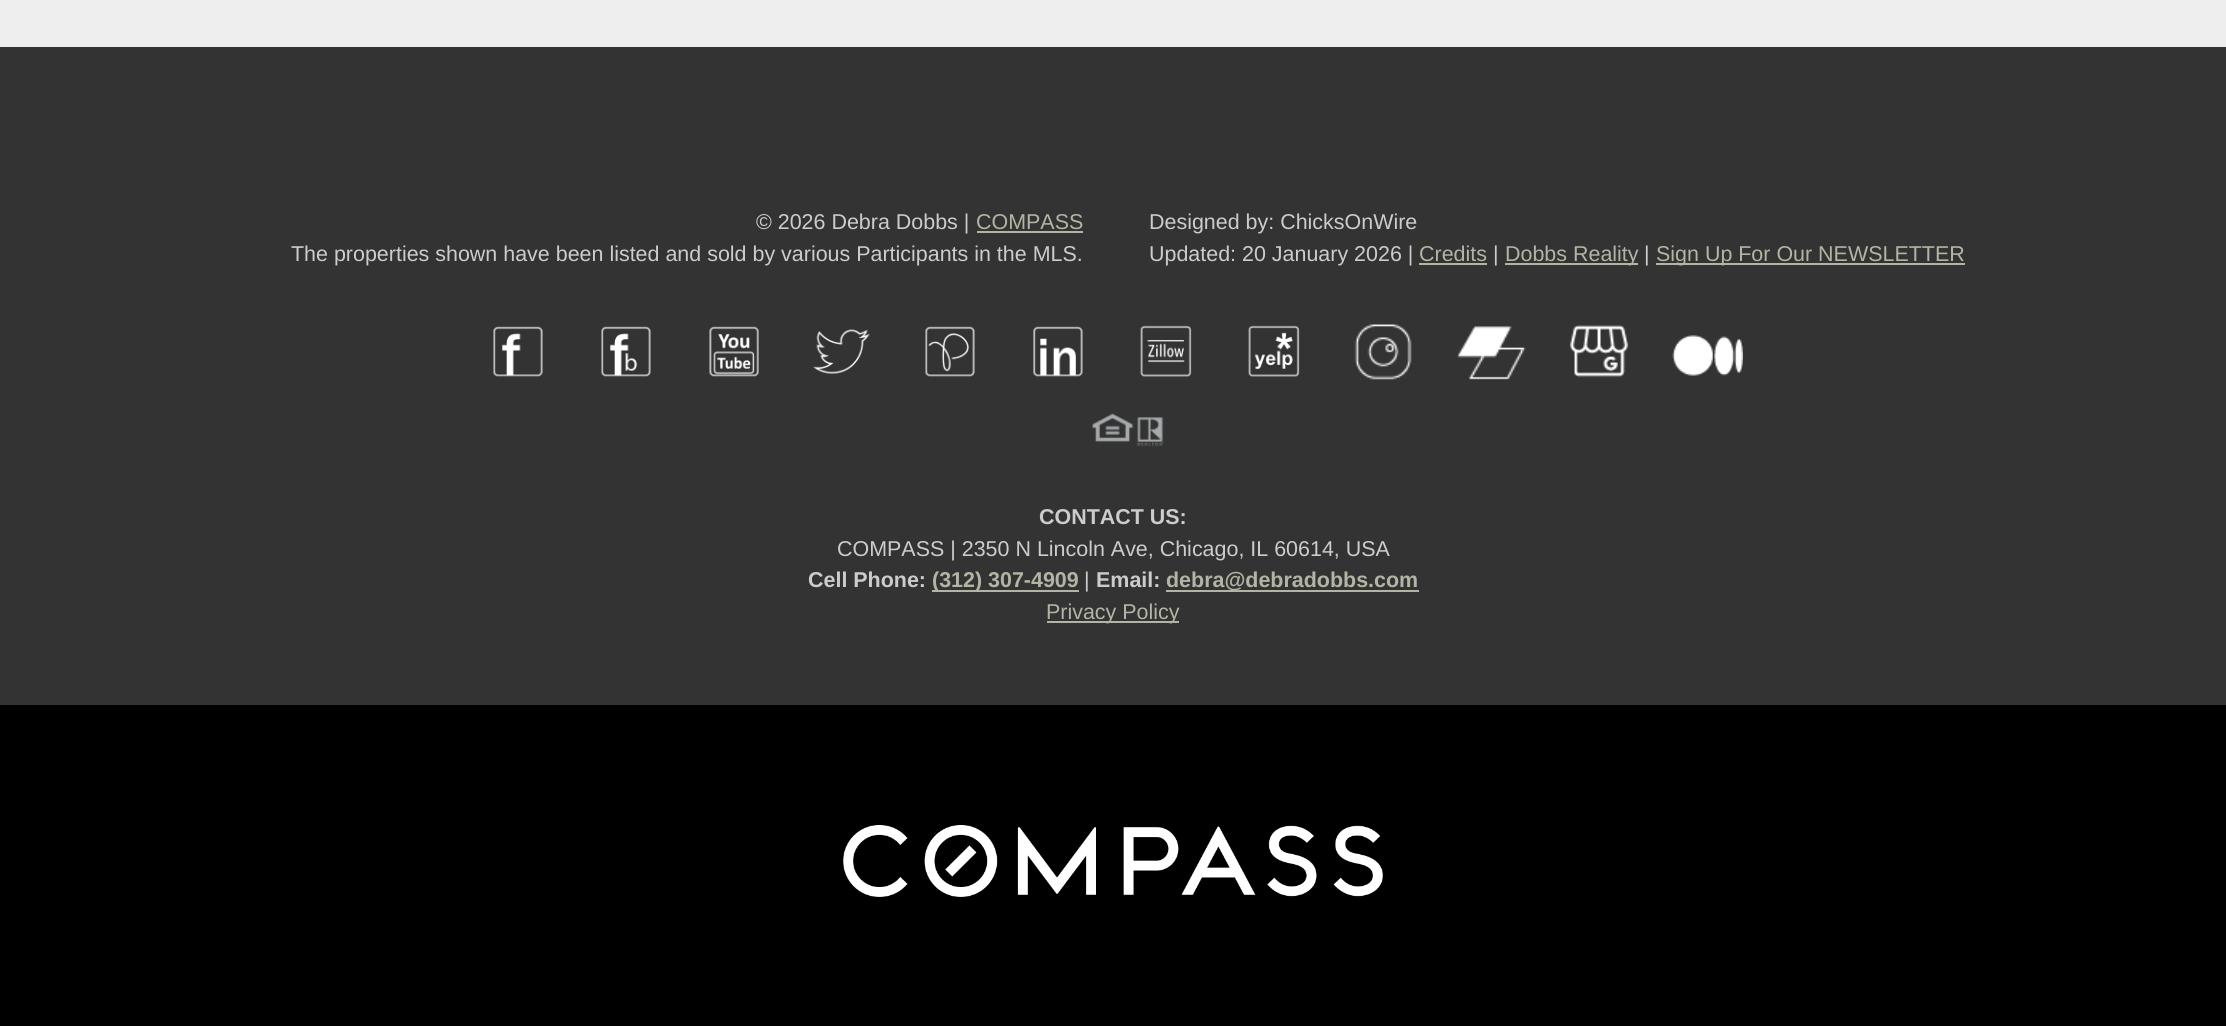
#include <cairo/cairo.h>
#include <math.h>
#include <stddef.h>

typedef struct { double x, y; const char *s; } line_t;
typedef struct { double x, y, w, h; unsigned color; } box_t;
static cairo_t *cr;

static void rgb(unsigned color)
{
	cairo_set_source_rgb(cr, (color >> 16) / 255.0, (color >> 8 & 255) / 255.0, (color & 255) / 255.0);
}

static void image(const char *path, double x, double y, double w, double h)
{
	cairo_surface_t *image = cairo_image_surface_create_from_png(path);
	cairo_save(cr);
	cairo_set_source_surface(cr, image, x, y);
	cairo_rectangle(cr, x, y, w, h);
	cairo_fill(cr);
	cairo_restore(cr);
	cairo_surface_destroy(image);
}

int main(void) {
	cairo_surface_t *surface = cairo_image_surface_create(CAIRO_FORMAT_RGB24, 2226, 1026);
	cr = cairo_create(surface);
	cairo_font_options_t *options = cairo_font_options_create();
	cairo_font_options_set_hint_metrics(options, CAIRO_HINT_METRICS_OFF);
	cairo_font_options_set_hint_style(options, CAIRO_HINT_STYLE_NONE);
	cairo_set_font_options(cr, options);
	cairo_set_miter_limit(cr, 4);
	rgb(0x333333);
	cairo_paint(cr);
	{
		static const box_t items[] = {
			{0, 0, 2226, 47, 0xeeeeee},
			{977, 231, 106, 2, 0xb1b5a3},
			{1419, 263, 68, 2, 0xb1b5a3},
			{1505, 263, 133, 2, 0xb1b5a3},
			{1656, 263, 309, 2, 0xb1b5a3},
		};
		for (size_t i = 0; i < sizeof items / sizeof *items; i++) {
			rgb(items[i].color);
			cairo_rectangle(cr, items[i].x, items[i].y, items[i].w, items[i].h);
			cairo_fill(cr);
		}
	}
	image("img/1.png", 493, 326, 50, 51);
	image("img/2.png", 601, 326, 50, 51);
	image("img/3.png", 709, 326, 50, 51);
	image("img/4.png", 813, 329, 57, 45);
	image("img/5.png", 925, 326, 50, 51);
	image("img/6.png", 1033, 326, 50, 51);
	image("img/7.png", 1140, 325, 52, 52);
	image("img/8.png", 1248, 325, 52, 52);
	image("img/9.png", 1354, 324, 58, 56);
	image("img/10.png", 1457, 326, 69, 54);
	image("img/11.png", 1570, 325, 59, 53);
	image("img/12.png", 1672, 335, 71, 41);
	image("img/13.png", 1092, 413, 72, 34);
	{
		static const box_t items[] = {
			{932, 590, 147, 2, 0xb1b5a3},
			{1166, 590, 253, 2, 0xb1b5a3},
			{1047, 621, 132, 2, 0xb1b5a3},
			{0, 705, 2226, 321, 0x000000},
		};
		for (size_t i = 0; i < sizeof items / sizeof *items; i++) {
			rgb(items[i].color);
			cairo_rectangle(cr, items[i].x, items[i].y, items[i].w, items[i].h);
			cairo_fill(cr);
		}
	}
	image("img/14.png", 843, 825, 540, 72);
	cairo_select_font_face(cr, "Liberation Sans", CAIRO_FONT_SLANT_NORMAL, CAIRO_FONT_WEIGHT_NORMAL);
	cairo_set_font_size(cr, 21.45);
	rgb(0xcccccc);
	cairo_move_to(cr, 756, 229);
	cairo_show_text(cr, "© 2026 Debra Dobbs |");
	rgb(0xb1b5a3);
	cairo_move_to(cr, 976, 229);
	cairo_show_text(cr, "COMPASS");
	rgb(0xcccccc);
	{
		static const line_t items[] = {
			{291, 261, "The properties shown have been listed and sold by various Participants in the MLS."},
			{1149, 229, "Designed by: ChicksOnWire"},
			{1149, 261, "Updated: 20 January 2026 |"},
		};
		for (size_t i = 0; i < sizeof items / sizeof *items; i++) {
			cairo_move_to(cr, items[i].x, items[i].y);
			cairo_show_text(cr, items[i].s);
		}
	}
	rgb(0xb1b5a3);
	cairo_move_to(cr, 1419, 261);
	cairo_show_text(cr, "Credits");
	rgb(0xcccccc);
	cairo_move_to(cr, 1493, 261);
	cairo_show_text(cr, "|");
	rgb(0xb1b5a3);
	cairo_move_to(cr, 1505, 261);
	cairo_show_text(cr, "Dobbs Reality");
	rgb(0xcccccc);
	cairo_move_to(cr, 1644, 261);
	cairo_show_text(cr, "|");
	rgb(0xb1b5a3);
	cairo_move_to(cr, 1656, 261);
	cairo_show_text(cr, "Sign Up For Our NEWSLETTER");
	cairo_select_font_face(cr, "Liberation Sans", CAIRO_FONT_SLANT_NORMAL, CAIRO_FONT_WEIGHT_BOLD);
	rgb(0xcccccc);
	cairo_move_to(cr, 1039, 524);
	cairo_show_text(cr, "CONTACT US:");
	cairo_select_font_face(cr, "Liberation Sans", CAIRO_FONT_SLANT_NORMAL, CAIRO_FONT_WEIGHT_NORMAL);
	cairo_move_to(cr, 837, 556);
	cairo_show_text(cr, "COMPASS | 2350 N Lincoln Ave, Chicago, IL 60614, USA");
	cairo_select_font_face(cr, "Liberation Sans", CAIRO_FONT_SLANT_NORMAL, CAIRO_FONT_WEIGHT_BOLD);
	cairo_move_to(cr, 808, 587);
	cairo_show_text(cr, "Cell Phone:");
	rgb(0xb1b5a3);
	cairo_move_to(cr, 932, 587);
	cairo_show_text(cr, "(312) 307-4909");
	cairo_select_font_face(cr, "Liberation Sans", CAIRO_FONT_SLANT_NORMAL, CAIRO_FONT_WEIGHT_NORMAL);
	rgb(0xcccccc);
	cairo_move_to(cr, 1084, 587);
	cairo_show_text(cr, "|");
	cairo_select_font_face(cr, "Liberation Sans", CAIRO_FONT_SLANT_NORMAL, CAIRO_FONT_WEIGHT_BOLD);
	cairo_move_to(cr, 1096, 587);
	cairo_show_text(cr, "Email:");
	rgb(0xb1b5a3);
	cairo_move_to(cr, 1166, 587);
	cairo_show_text(cr, "debra@debradobbs.com");
	cairo_select_font_face(cr, "Liberation Sans", CAIRO_FONT_SLANT_NORMAL, CAIRO_FONT_WEIGHT_NORMAL);
	cairo_move_to(cr, 1046, 619);
	cairo_show_text(cr, "Privacy Policy");
	cairo_surface_write_to_png(surface, "page.png");
	cairo_font_options_destroy(options);
	cairo_destroy(cr);
	cairo_surface_destroy(surface);
	return 0;
}
